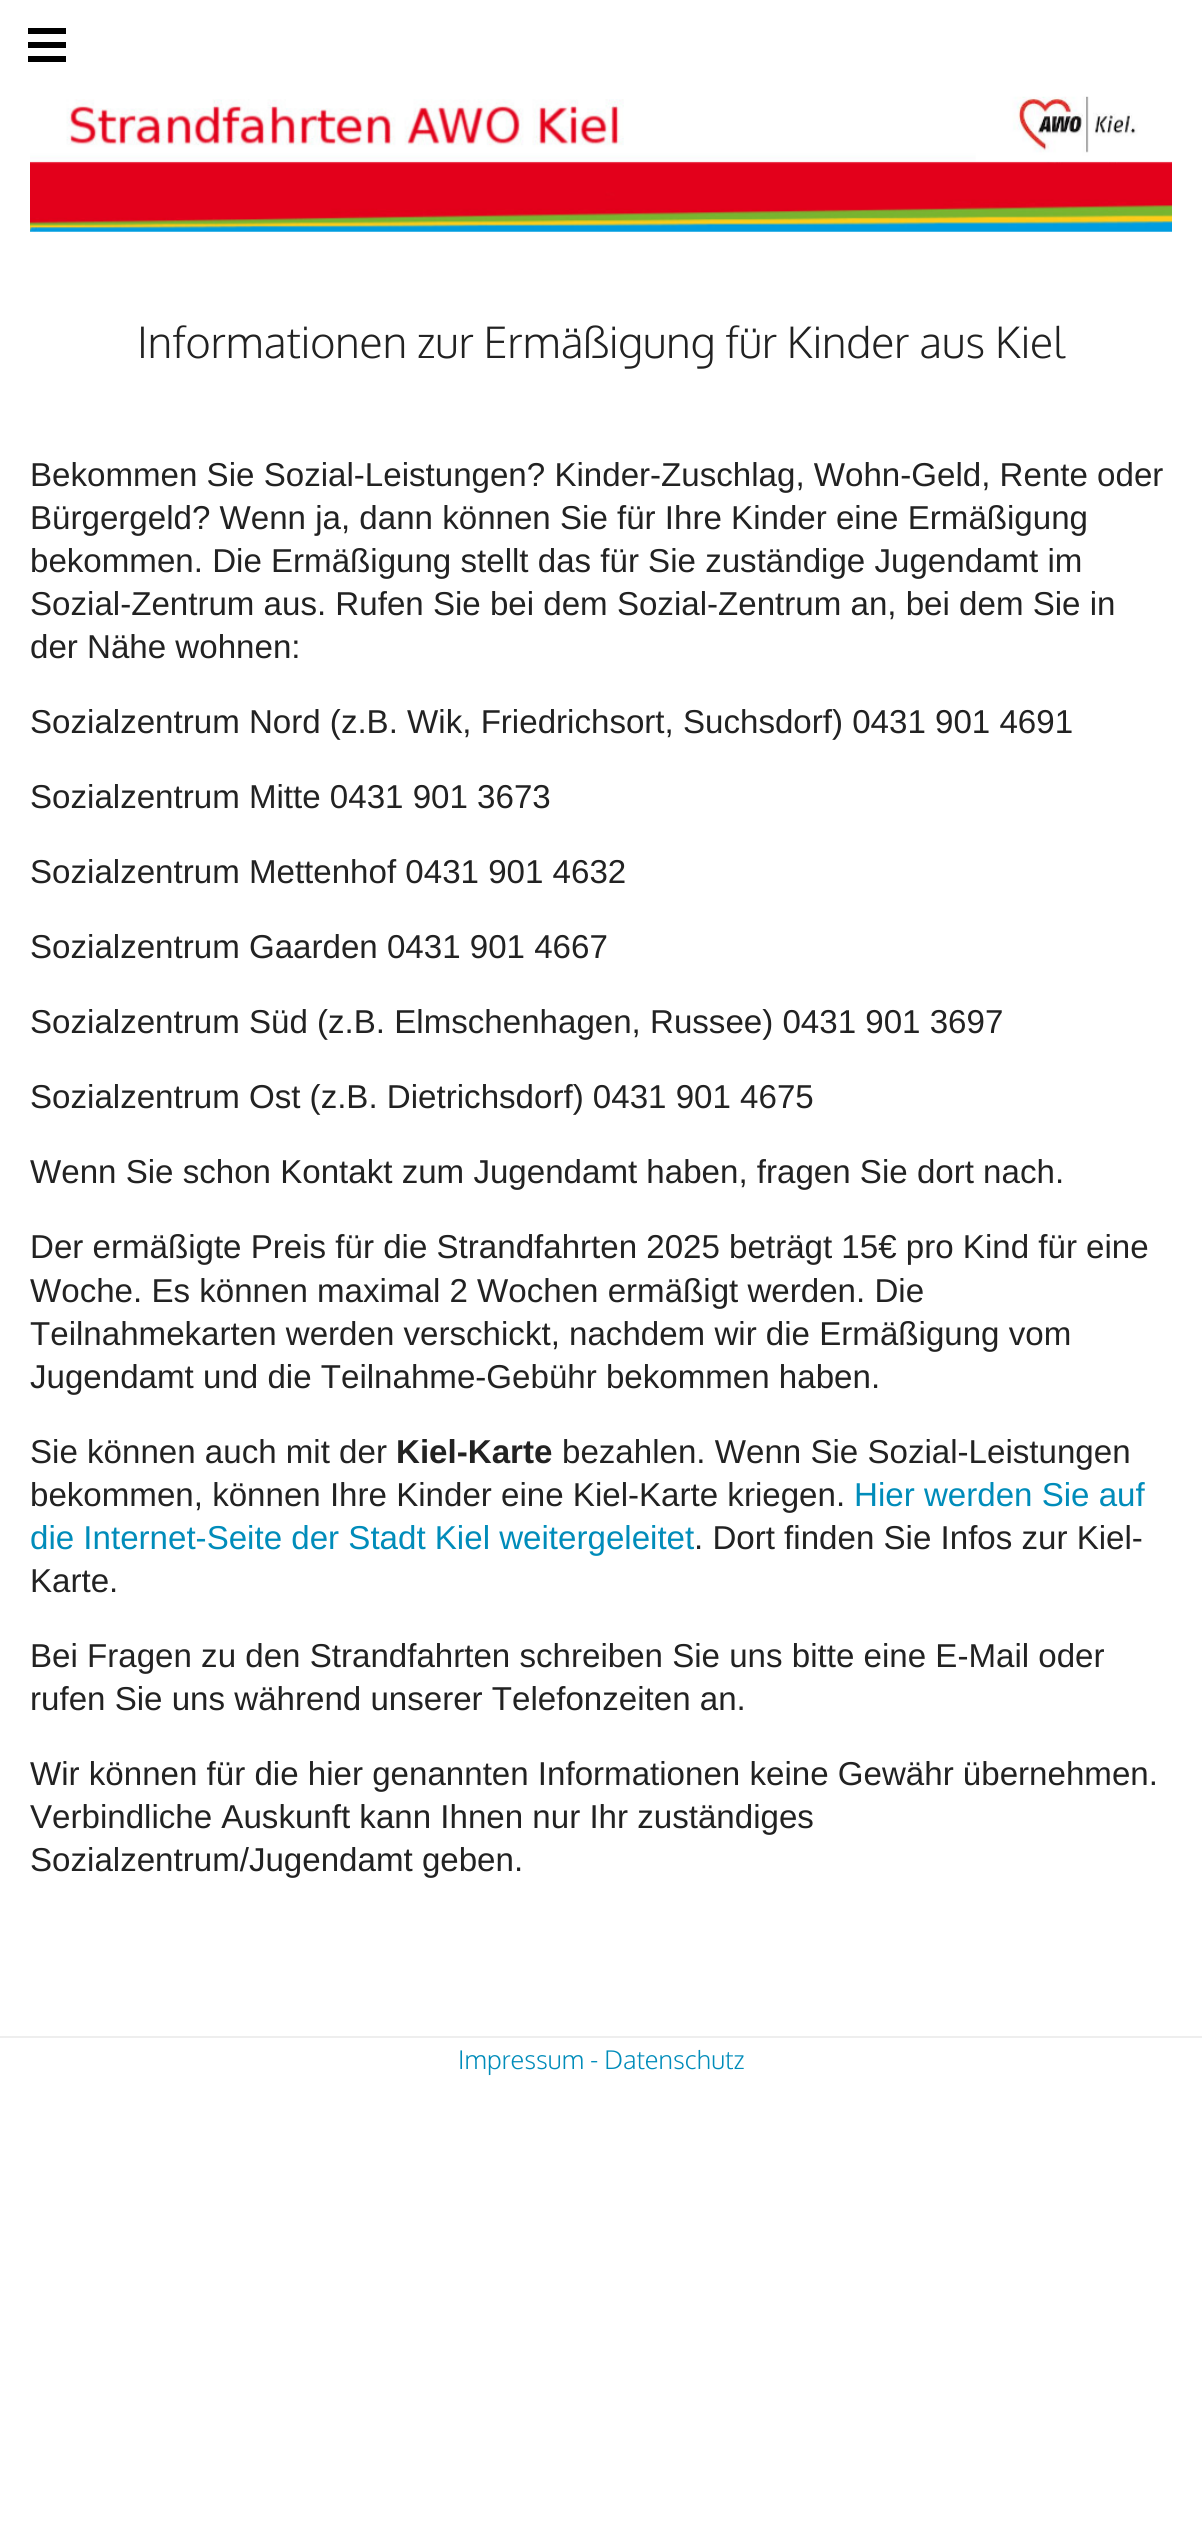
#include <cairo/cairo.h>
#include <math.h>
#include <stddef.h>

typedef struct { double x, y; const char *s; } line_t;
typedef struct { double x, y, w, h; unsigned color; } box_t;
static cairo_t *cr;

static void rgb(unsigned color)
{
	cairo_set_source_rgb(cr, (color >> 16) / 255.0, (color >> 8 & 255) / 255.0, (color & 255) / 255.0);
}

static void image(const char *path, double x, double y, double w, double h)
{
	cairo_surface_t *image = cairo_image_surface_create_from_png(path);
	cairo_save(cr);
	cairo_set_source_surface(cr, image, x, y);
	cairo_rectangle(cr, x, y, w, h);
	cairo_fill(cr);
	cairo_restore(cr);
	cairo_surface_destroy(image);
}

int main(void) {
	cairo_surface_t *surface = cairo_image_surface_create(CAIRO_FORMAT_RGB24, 1202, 2527);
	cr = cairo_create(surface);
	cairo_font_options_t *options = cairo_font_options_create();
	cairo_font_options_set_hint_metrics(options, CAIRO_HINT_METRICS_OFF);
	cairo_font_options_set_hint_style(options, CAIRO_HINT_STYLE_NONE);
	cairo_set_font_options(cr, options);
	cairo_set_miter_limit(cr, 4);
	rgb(0xffffff);
	cairo_paint(cr);
	{
		static const box_t items[] = {
			{28, 56, 38, 6, 0x000000},
			{28, 42, 38, 6, 0x000000},
			{28, 28, 38, 6, 0x000000},
		};
		for (size_t i = 0; i < sizeof items / sizeof *items; i++) {
			rgb(items[i].color);
			cairo_rectangle(cr, items[i].x, items[i].y, items[i].w, items[i].h);
			cairo_fill(cr);
		}
	}
	image("img/1.png", 30, 96, 1142, 136);
	rgb(0xeeeeee);
	cairo_rectangle(cr, 0, 2036, 1202, 2);
	cairo_fill(cr);
	cairo_select_font_face(cr, "Oxygen Light", CAIRO_FONT_SLANT_NORMAL, CAIRO_FONT_WEIGHT_NORMAL);
	cairo_set_font_size(cr, 43.2);
	rgb(0x222222);
	cairo_move_to(cr, 137, 358);
	cairo_show_text(cr, "Informationen zur Ermäßigung für Kinder aus Kiel");
	cairo_select_font_face(cr, "Liberation Sans", CAIRO_FONT_SLANT_NORMAL, CAIRO_FONT_WEIGHT_NORMAL);
	cairo_set_font_size(cr, 33.1);
	{
		static const line_t items[] = {
			{30, 486, "Bekommen Sie Sozial-Leistungen? Kinder-Zuschlag, Wohn-Geld, Rente oder"},
			{30, 529, "Bürgergeld? Wenn ja, dann können Sie für Ihre Kinder eine Ermäßigung"},
			{30, 572, "bekommen. Die Ermäßigung stellt das für Sie zuständige Jugendamt im"},
			{30, 615, "Sozial-Zentrum aus. Rufen Sie bei dem Sozial-Zentrum an, bei dem Sie in"},
			{30, 658, "der Nähe wohnen:"},
			{30, 733, "Sozialzentrum Nord (z.B. Wik, Friedrichsort, Suchsdorf) 0431 901 4691"},
			{30, 808, "Sozialzentrum Mitte 0431 901 3673"},
			{30, 883, "Sozialzentrum Mettenhof 0431 901 4632"},
			{30, 958, "Sozialzentrum Gaarden 0431 901 4667"},
			{30, 1033, "Sozialzentrum Süd (z.B. Elmschenhagen, Russee) 0431 901 3697"},
			{30, 1108, "Sozialzentrum Ost (z.B. Dietrichsdorf) 0431 901 4675"},
			{30, 1183, "Wenn Sie schon Kontakt zum Jugendamt haben, fragen Sie dort nach."},
			{30, 1258, "Der ermäßigte Preis für die Strandfahrten 2025 beträgt 15€ pro Kind für eine"},
			{30, 1302, "Woche. Es können maximal 2 Wochen ermäßigt werden. Die"},
			{30, 1345, "Teilnahmekarten werden verschickt, nachdem wir die Ermäßigung vom"},
			{30, 1388, "Jugendamt und die Teilnahme-Gebühr bekommen haben."},
			{30, 1463, "Sie können auch mit der"},
		};
		for (size_t i = 0; i < sizeof items / sizeof *items; i++) {
			cairo_move_to(cr, items[i].x, items[i].y);
			cairo_show_text(cr, items[i].s);
		}
	}
	cairo_select_font_face(cr, "Liberation Sans", CAIRO_FONT_SLANT_NORMAL, CAIRO_FONT_WEIGHT_BOLD);
	cairo_move_to(cr, 396, 1463);
	cairo_show_text(cr, "Kiel-Karte");
	cairo_select_font_face(cr, "Liberation Sans", CAIRO_FONT_SLANT_NORMAL, CAIRO_FONT_WEIGHT_NORMAL);
	cairo_move_to(cr, 562, 1463);
	cairo_show_text(cr, "bezahlen. Wenn Sie Sozial-Leistungen");
	cairo_move_to(cr, 30, 1506);
	cairo_show_text(cr, "bekommen, können Ihre Kinder eine Kiel-Karte kriegen.");
	rgb(0x008cba);
	cairo_move_to(cr, 854, 1506);
	cairo_show_text(cr, "Hier werden Sie auf");
	cairo_move_to(cr, 30, 1549);
	cairo_show_text(cr, "die Internet-Seite der Stadt Kiel weitergeleitet");
	rgb(0x222222);
	{
		static const line_t items[] = {
			{694, 1549, ". Dort finden Sie Infos zur Kiel-"},
			{30, 1592, "Karte."},
			{30, 1667, "Bei Fragen zu den Strandfahrten schreiben Sie uns bitte eine E-Mail oder"},
			{30, 1710, "rufen Sie uns während unserer Telefonzeiten an."},
			{30, 1785, "Wir können für die hier genannten Informationen keine Gewähr übernehmen."},
			{30, 1828, "Verbindliche Auskunft kann Ihnen nur Ihr zuständiges"},
			{30, 1871, "Sozialzentrum/Jugendamt geben."},
		};
		for (size_t i = 0; i < sizeof items / sizeof *items; i++) {
			cairo_move_to(cr, items[i].x, items[i].y);
			cairo_show_text(cr, items[i].s);
		}
	}
	cairo_select_font_face(cr, "Oxygen Light", CAIRO_FONT_SLANT_NORMAL, CAIRO_FONT_WEIGHT_NORMAL);
	cairo_set_font_size(cr, 25.6);
	rgb(0x008cba);
	cairo_move_to(cr, 458, 2069);
	cairo_show_text(cr, "Impressum - Datenschutz");
	cairo_surface_write_to_png(surface, "page.png");
	cairo_font_options_destroy(options);
	cairo_destroy(cr);
	cairo_surface_destroy(surface);
	return 0;
}
